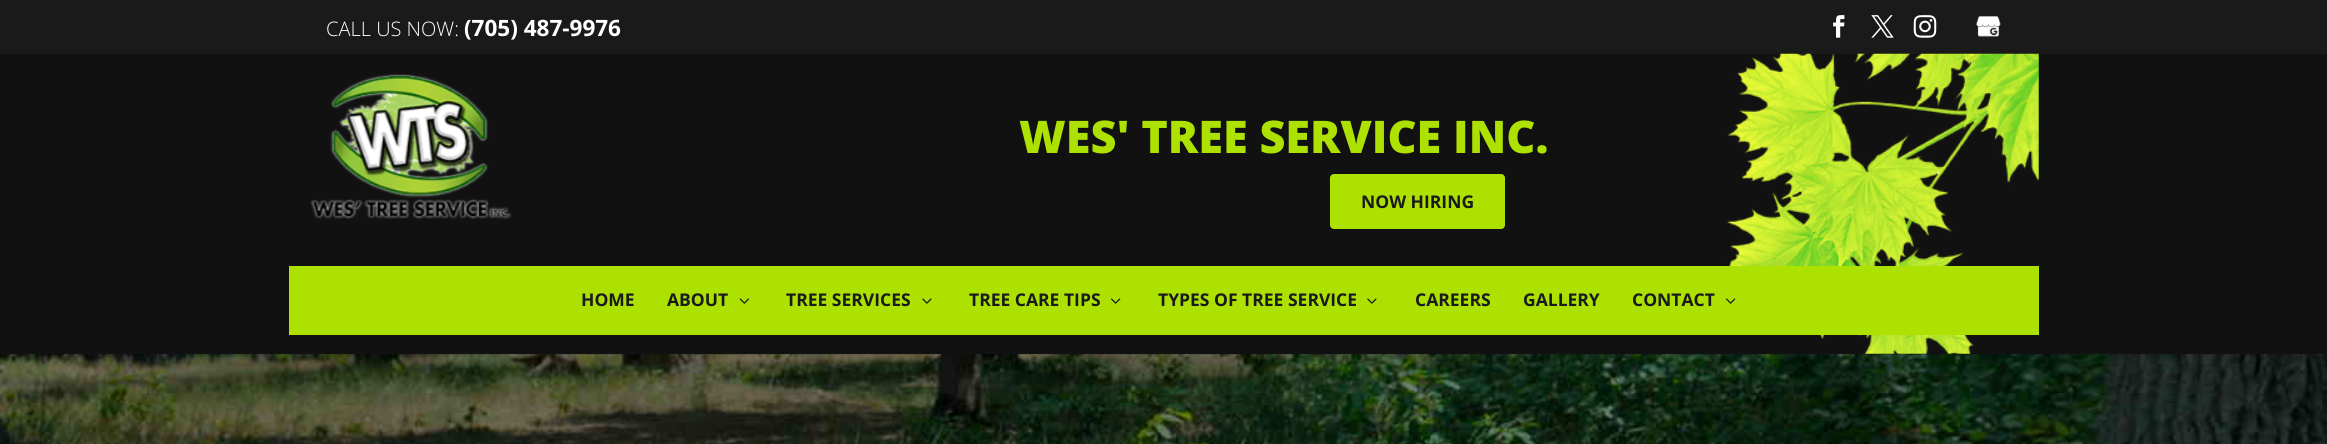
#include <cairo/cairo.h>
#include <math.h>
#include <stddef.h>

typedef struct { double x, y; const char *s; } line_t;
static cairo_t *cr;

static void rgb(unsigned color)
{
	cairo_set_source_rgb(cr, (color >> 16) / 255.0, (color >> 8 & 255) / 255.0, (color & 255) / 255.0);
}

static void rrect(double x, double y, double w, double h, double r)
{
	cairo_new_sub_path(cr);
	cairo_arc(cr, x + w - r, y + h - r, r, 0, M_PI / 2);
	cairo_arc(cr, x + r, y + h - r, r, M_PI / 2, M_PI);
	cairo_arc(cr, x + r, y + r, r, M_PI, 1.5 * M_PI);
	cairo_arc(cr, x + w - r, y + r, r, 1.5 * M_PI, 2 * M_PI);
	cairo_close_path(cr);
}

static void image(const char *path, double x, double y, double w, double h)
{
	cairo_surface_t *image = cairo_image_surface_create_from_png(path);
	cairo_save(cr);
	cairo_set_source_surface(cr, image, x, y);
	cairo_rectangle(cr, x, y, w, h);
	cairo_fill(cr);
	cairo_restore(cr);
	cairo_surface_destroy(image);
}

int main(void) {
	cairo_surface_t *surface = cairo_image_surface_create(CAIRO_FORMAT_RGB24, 2327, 444);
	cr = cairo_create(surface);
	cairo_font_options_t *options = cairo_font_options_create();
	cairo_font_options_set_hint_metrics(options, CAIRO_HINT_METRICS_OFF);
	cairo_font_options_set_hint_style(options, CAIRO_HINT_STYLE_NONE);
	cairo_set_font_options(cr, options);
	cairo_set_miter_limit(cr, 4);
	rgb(0x1a1a1a);
	cairo_paint(cr);
	image("img/1.png", 1833, 15, 12, 23);
	image("img/2.png", 1871, 15, 23, 23);
	image("img/3.png", 1913, 15, 24, 23);
	image("img/4.png", 1976, 16, 25, 21);
	image("img/10.png", 0, 354, 2327, 90);
	cairo_set_source_rgba(cr, 0, 0, 0, 0.1);
	cairo_new_path(cr);
	cairo_move_to(cr, 0, 354);
	cairo_line_to(cr, 0, 355);
	cairo_line_to(cr, 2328, 355);
	cairo_line_to(cr, 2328, 55);
	cairo_line_to(cr, 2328, 354);
	cairo_close_path(cr);
	cairo_fill(cr);
	rgb(0x111111);
	cairo_rectangle(cr, 0, 54, 2327, 300);
	cairo_fill(cr);
	image("img/5.png", 1726, 53, 313, 301);
	image("img/6.png", 310, 74, 202, 146);
	rgb(0xade102);
	rrect(1330, 174, 175, 55, 4);
	cairo_fill(cr);
	cairo_rectangle(cr, 289, 266, 1750, 69);
	cairo_fill(cr);
	image("img/7.png", 739, 298, 10, 6);
	image("img/8.png", 922, 298, 10, 6);
	image("img/9.png", 1111, 298, 10, 6);
	image("img/8.png", 1367, 298, 10, 6);
	image("img/9.png", 1726, 298, 10, 6);
	cairo_select_font_face(cr, "Open Sans Light", CAIRO_FONT_SLANT_NORMAL, CAIRO_FONT_WEIGHT_NORMAL);
	cairo_set_font_size(cr, 20);
	rgb(0xffffff);
	cairo_move_to(cr, 326, 36);
	cairo_show_text(cr, "CALL US NOW:");
	cairo_select_font_face(cr, "Open Sans", CAIRO_FONT_SLANT_NORMAL, CAIRO_FONT_WEIGHT_BOLD);
	cairo_set_font_size(cr, 22.5);
	cairo_move_to(cr, 464, 36);
	cairo_show_text(cr, "(705) 487-9976");
	cairo_select_font_face(cr, "Open Sans ExtraBold", CAIRO_FONT_SLANT_NORMAL, CAIRO_FONT_WEIGHT_NORMAL);
	cairo_set_font_size(cr, 45);
	rgb(0xade102);
	cairo_move_to(cr, 1019, 153);
	cairo_show_text(cr, "WES' TREE SERVICE INC.");
	cairo_select_font_face(cr, "Open Sans", CAIRO_FONT_SLANT_NORMAL, CAIRO_FONT_WEIGHT_BOLD);
	cairo_set_font_size(cr, 17.5);
	rgb(0x1a1a1a);
	{
		static const line_t items[] = {
			{1361, 208, "NOW HIRING"},
			{581, 306, "HOME"},
			{667, 306, "ABOUT"},
			{786, 306, "TREE SERVICES"},
			{969, 306, "TREE CARE TIPS"},
			{1158, 306, "TYPES OF TREE SERVICE"},
			{1415, 306, "CAREERS"},
			{1523, 306, "GALLERY"},
			{1632, 306, "CONTACT"},
		};
		for (size_t i = 0; i < sizeof items / sizeof *items; i++) {
			cairo_move_to(cr, items[i].x, items[i].y);
			cairo_show_text(cr, items[i].s);
		}
	}
	cairo_surface_write_to_png(surface, "page.png");
	cairo_font_options_destroy(options);
	cairo_destroy(cr);
	cairo_surface_destroy(surface);
	return 0;
}
